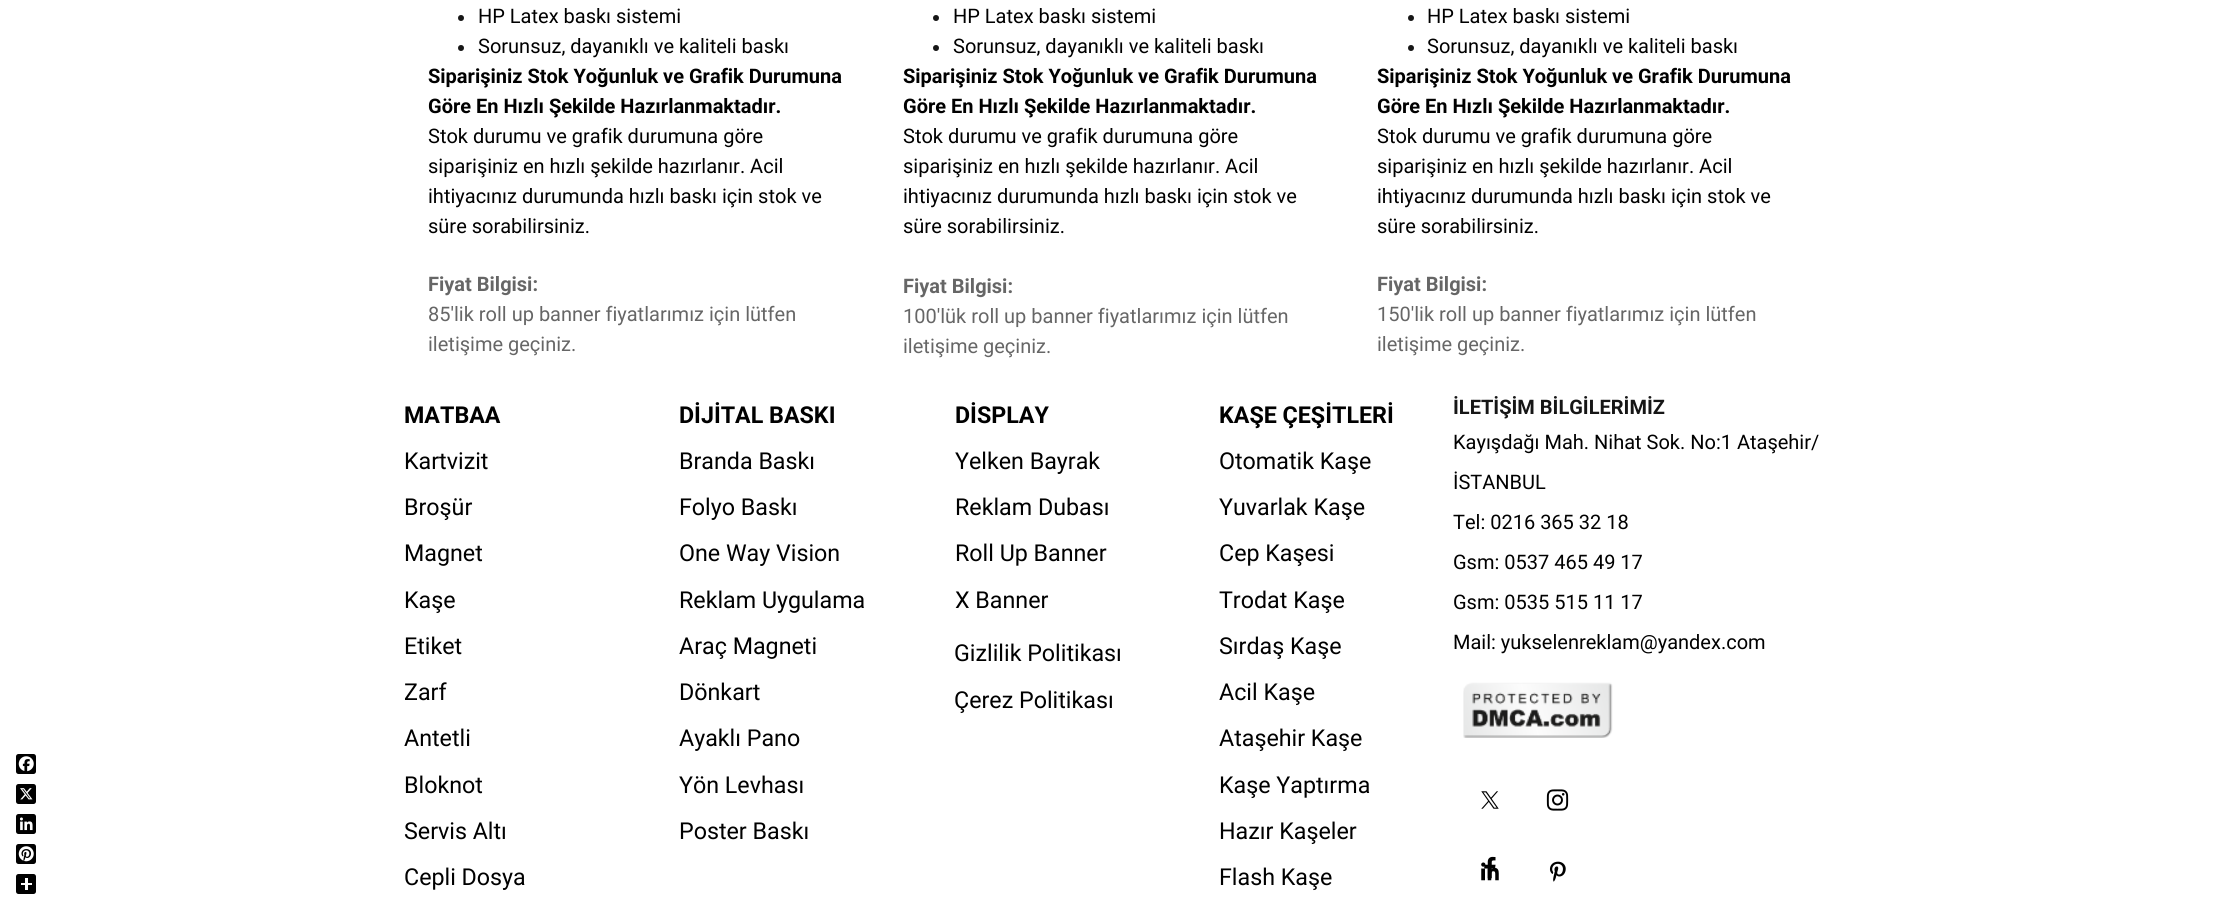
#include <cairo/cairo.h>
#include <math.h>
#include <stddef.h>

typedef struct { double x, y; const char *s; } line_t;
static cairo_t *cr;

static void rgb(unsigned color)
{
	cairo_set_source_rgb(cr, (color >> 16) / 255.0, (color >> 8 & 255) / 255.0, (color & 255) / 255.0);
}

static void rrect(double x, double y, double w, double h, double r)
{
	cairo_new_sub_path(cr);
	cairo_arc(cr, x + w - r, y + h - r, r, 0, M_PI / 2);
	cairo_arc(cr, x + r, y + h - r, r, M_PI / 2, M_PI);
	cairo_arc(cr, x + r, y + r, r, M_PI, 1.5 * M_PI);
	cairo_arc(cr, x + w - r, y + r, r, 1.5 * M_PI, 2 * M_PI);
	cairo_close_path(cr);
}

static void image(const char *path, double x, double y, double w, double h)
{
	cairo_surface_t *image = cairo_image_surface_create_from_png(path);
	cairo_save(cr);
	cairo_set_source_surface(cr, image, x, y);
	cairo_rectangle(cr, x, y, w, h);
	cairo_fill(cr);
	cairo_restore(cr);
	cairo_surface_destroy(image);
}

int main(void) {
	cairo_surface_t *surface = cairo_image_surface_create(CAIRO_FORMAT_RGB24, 2230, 909);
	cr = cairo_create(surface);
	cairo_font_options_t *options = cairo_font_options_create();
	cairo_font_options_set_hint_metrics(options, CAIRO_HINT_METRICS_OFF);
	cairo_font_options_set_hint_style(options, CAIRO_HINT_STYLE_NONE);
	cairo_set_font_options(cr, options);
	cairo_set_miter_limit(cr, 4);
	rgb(0xffffff);
	cairo_paint(cr);
	rgb(0x000000);
	rrect(16, 754, 20, 20, 2.5);
	cairo_fill(cr);
	image("img/1.png", 18, 756, 16, 16);
	rrect(16, 784, 20, 20, 2.5);
	cairo_fill(cr);
	image("img/2.png", 20, 788, 13, 12);
	rrect(16, 814, 20, 20, 2.5);
	cairo_fill(cr);
	image("img/3.png", 20, 817, 13, 14);
	rrect(16, 844, 20, 20, 2.5);
	cairo_fill(cr);
	image("img/4.png", 18, 846, 16, 16);
	rrect(16, 874, 20, 20, 2.5);
	cairo_fill(cr);
	rgb(0xffffff);
	cairo_rectangle(cr, 25, 878, 3, 12);
	cairo_fill(cr);
	cairo_rectangle(cr, 21, 883, 11, 2);
	cairo_fill(cr);
	rgb(0x161616);
	cairo_arc(cr, 461, 18, 3, 0, 2 * M_PI);
	cairo_fill(cr);
	cairo_arc(cr, 461, 48, 3, 0, 2 * M_PI);
	cairo_fill(cr);
	cairo_arc(cr, 936, 18, 3, 0, 2 * M_PI);
	cairo_fill(cr);
	cairo_arc(cr, 936, 48, 3, 0, 2 * M_PI);
	cairo_fill(cr);
	cairo_arc(cr, 1411, 18, 3, 0, 2 * M_PI);
	cairo_fill(cr);
	cairo_arc(cr, 1411, 48, 3, 0, 2 * M_PI);
	cairo_fill(cr);
	image("img/5.png", 1463, 682, 150, 56);
	image("img/6.png", 1481, 791, 18, 18);
	image("img/7.png", 1546, 789, 23, 22);
	image("img/8.png", 1484, 856, 12, 23);
	image("img/9.png", 1481, 862, 18, 19);
	image("img/10.png", 1549, 861, 17, 21);
	cairo_select_font_face(cr, "Roboto", CAIRO_FONT_SLANT_NORMAL, CAIRO_FONT_WEIGHT_NORMAL);
	cairo_set_font_size(cr, 20);
	rgb(0x000000);
	cairo_move_to(cr, 478, 23);
	cairo_show_text(cr, "HP Latex baskı sistemi");
	cairo_move_to(cr, 478, 53);
	cairo_show_text(cr, "Sorunsuz, dayanıklı ve kaliteli baskı");
	cairo_select_font_face(cr, "Roboto", CAIRO_FONT_SLANT_NORMAL, CAIRO_FONT_WEIGHT_BOLD);
	cairo_move_to(cr, 428, 83);
	cairo_show_text(cr, "Siparişiniz Stok Yoğunluk ve Grafik Durumuna");
	cairo_move_to(cr, 428, 113);
	cairo_show_text(cr, "Göre En Hızlı Şekilde Hazırlanmaktadır.");
	cairo_select_font_face(cr, "Roboto", CAIRO_FONT_SLANT_NORMAL, CAIRO_FONT_WEIGHT_NORMAL);
	{
		static const line_t items[] = {
			{428, 143, "Stok durumu ve grafik durumuna göre"},
			{428, 173, "siparişiniz en hızlı şekilde hazırlanır. Acil"},
			{428, 203, "ihtiyacınız durumunda hızlı baskı için stok ve"},
			{428, 233, "süre sorabilirsiniz."},
		};
		for (size_t i = 0; i < sizeof items / sizeof *items; i++) {
			cairo_move_to(cr, items[i].x, items[i].y);
			cairo_show_text(cr, items[i].s);
		}
	}
	cairo_select_font_face(cr, "Roboto", CAIRO_FONT_SLANT_NORMAL, CAIRO_FONT_WEIGHT_BOLD);
	rgb(0x666666);
	cairo_move_to(cr, 428, 291);
	cairo_show_text(cr, "Fiyat Bilgisi:");
	cairo_select_font_face(cr, "Roboto", CAIRO_FONT_SLANT_NORMAL, CAIRO_FONT_WEIGHT_NORMAL);
	cairo_move_to(cr, 428, 321);
	cairo_show_text(cr, "85'lik roll up banner fiyatlarımız için lütfen");
	cairo_move_to(cr, 428, 351);
	cairo_show_text(cr, "iletişime geçiniz.");
	rgb(0x000000);
	cairo_move_to(cr, 953, 23);
	cairo_show_text(cr, "HP Latex baskı sistemi");
	cairo_move_to(cr, 953, 53);
	cairo_show_text(cr, "Sorunsuz, dayanıklı ve kaliteli baskı");
	cairo_select_font_face(cr, "Roboto", CAIRO_FONT_SLANT_NORMAL, CAIRO_FONT_WEIGHT_BOLD);
	cairo_move_to(cr, 903, 83);
	cairo_show_text(cr, "Siparişiniz Stok Yoğunluk ve Grafik Durumuna");
	cairo_move_to(cr, 903, 113);
	cairo_show_text(cr, "Göre En Hızlı Şekilde Hazırlanmaktadır.");
	cairo_select_font_face(cr, "Roboto", CAIRO_FONT_SLANT_NORMAL, CAIRO_FONT_WEIGHT_NORMAL);
	{
		static const line_t items[] = {
			{903, 143, "Stok durumu ve grafik durumuna göre"},
			{903, 173, "siparişiniz en hızlı şekilde hazırlanır. Acil"},
			{903, 203, "ihtiyacınız durumunda hızlı baskı için stok ve"},
			{903, 233, "süre sorabilirsiniz."},
		};
		for (size_t i = 0; i < sizeof items / sizeof *items; i++) {
			cairo_move_to(cr, items[i].x, items[i].y);
			cairo_show_text(cr, items[i].s);
		}
	}
	cairo_select_font_face(cr, "Roboto", CAIRO_FONT_SLANT_NORMAL, CAIRO_FONT_WEIGHT_BOLD);
	rgb(0x666666);
	cairo_move_to(cr, 903, 293);
	cairo_show_text(cr, "Fiyat Bilgisi:");
	cairo_select_font_face(cr, "Roboto", CAIRO_FONT_SLANT_NORMAL, CAIRO_FONT_WEIGHT_NORMAL);
	cairo_move_to(cr, 903, 323);
	cairo_show_text(cr, "100'lük roll up banner fiyatlarımız için lütfen");
	cairo_move_to(cr, 903, 353);
	cairo_show_text(cr, "iletişime geçiniz.");
	rgb(0x000000);
	cairo_move_to(cr, 1427, 23);
	cairo_show_text(cr, "HP Latex baskı sistemi");
	cairo_move_to(cr, 1427, 53);
	cairo_show_text(cr, "Sorunsuz, dayanıklı ve kaliteli baskı");
	cairo_select_font_face(cr, "Roboto", CAIRO_FONT_SLANT_NORMAL, CAIRO_FONT_WEIGHT_BOLD);
	cairo_move_to(cr, 1377, 83);
	cairo_show_text(cr, "Siparişiniz Stok Yoğunluk ve Grafik Durumuna");
	cairo_move_to(cr, 1377, 113);
	cairo_show_text(cr, "Göre En Hızlı Şekilde Hazırlanmaktadır.");
	cairo_select_font_face(cr, "Roboto", CAIRO_FONT_SLANT_NORMAL, CAIRO_FONT_WEIGHT_NORMAL);
	{
		static const line_t items[] = {
			{1377, 143, "Stok durumu ve grafik durumuna göre"},
			{1377, 173, "siparişiniz en hızlı şekilde hazırlanır. Acil"},
			{1377, 203, "ihtiyacınız durumunda hızlı baskı için stok ve"},
			{1377, 233, "süre sorabilirsiniz."},
		};
		for (size_t i = 0; i < sizeof items / sizeof *items; i++) {
			cairo_move_to(cr, items[i].x, items[i].y);
			cairo_show_text(cr, items[i].s);
		}
	}
	cairo_select_font_face(cr, "Roboto", CAIRO_FONT_SLANT_NORMAL, CAIRO_FONT_WEIGHT_BOLD);
	rgb(0x666666);
	cairo_move_to(cr, 1377, 291);
	cairo_show_text(cr, "Fiyat Bilgisi:");
	cairo_select_font_face(cr, "Roboto", CAIRO_FONT_SLANT_NORMAL, CAIRO_FONT_WEIGHT_NORMAL);
	cairo_move_to(cr, 1377, 321);
	cairo_show_text(cr, "150'lik roll up banner fiyatlarımız için lütfen");
	cairo_move_to(cr, 1377, 351);
	cairo_show_text(cr, "iletişime geçiniz.");
	cairo_select_font_face(cr, "Roboto", CAIRO_FONT_SLANT_NORMAL, CAIRO_FONT_WEIGHT_BOLD);
	cairo_set_font_size(cr, 23.25);
	rgb(0x000000);
	cairo_move_to(cr, 404, 423);
	cairo_show_text(cr, "MATBAA");
	cairo_select_font_face(cr, "Roboto", CAIRO_FONT_SLANT_NORMAL, CAIRO_FONT_WEIGHT_NORMAL);
	{
		static const line_t items[] = {
			{404, 469, "Kartvizit"},
			{404, 515, "Broşür"},
			{404, 561, "Magnet"},
			{404, 608, "Kaşe"},
			{404, 654, "Etiket"},
			{404, 700, "Zarf"},
			{404, 746, "Antetli"},
			{404, 793, "Bloknot"},
			{404, 839, "Servis Altı"},
			{404, 885, "Cepli Dosya"},
		};
		for (size_t i = 0; i < sizeof items / sizeof *items; i++) {
			cairo_move_to(cr, items[i].x, items[i].y);
			cairo_show_text(cr, items[i].s);
		}
	}
	cairo_select_font_face(cr, "Roboto", CAIRO_FONT_SLANT_NORMAL, CAIRO_FONT_WEIGHT_BOLD);
	cairo_move_to(cr, 679, 423);
	cairo_show_text(cr, "DİJİTAL BASKI");
	cairo_select_font_face(cr, "Roboto", CAIRO_FONT_SLANT_NORMAL, CAIRO_FONT_WEIGHT_NORMAL);
	{
		static const line_t items[] = {
			{679, 469, "Branda Baskı"},
			{679, 515, "Folyo Baskı"},
			{679, 561, "One Way Vision"},
			{679, 608, "Reklam Uygulama"},
			{679, 654, "Araç Magneti"},
			{679, 700, "Dönkart"},
			{679, 746, "Ayaklı Pano"},
			{679, 793, "Yön Levhası"},
			{679, 839, "Poster Baskı"},
		};
		for (size_t i = 0; i < sizeof items / sizeof *items; i++) {
			cairo_move_to(cr, items[i].x, items[i].y);
			cairo_show_text(cr, items[i].s);
		}
	}
	cairo_select_font_face(cr, "Roboto", CAIRO_FONT_SLANT_NORMAL, CAIRO_FONT_WEIGHT_BOLD);
	cairo_move_to(cr, 955, 423);
	cairo_show_text(cr, "DİSPLAY");
	cairo_select_font_face(cr, "Roboto", CAIRO_FONT_SLANT_NORMAL, CAIRO_FONT_WEIGHT_NORMAL);
	{
		static const line_t items[] = {
			{955, 469, "Yelken Bayrak"},
			{955, 515, "Reklam Dubası"},
			{955, 561, "Roll Up Banner"},
			{955, 608, "X Banner"},
		};
		for (size_t i = 0; i < sizeof items / sizeof *items; i++) {
			cairo_move_to(cr, items[i].x, items[i].y);
			cairo_show_text(cr, items[i].s);
		}
	}
	cairo_select_font_face(cr, "Roboto", CAIRO_FONT_SLANT_NORMAL, CAIRO_FONT_WEIGHT_BOLD);
	cairo_move_to(cr, 1219, 423);
	cairo_show_text(cr, "KAŞE ÇEŞİTLERİ");
	cairo_select_font_face(cr, "Roboto", CAIRO_FONT_SLANT_NORMAL, CAIRO_FONT_WEIGHT_NORMAL);
	{
		static const line_t items[] = {
			{1219, 469, "Otomatik Kaşe"},
			{1219, 515, "Yuvarlak Kaşe"},
			{1219, 561, "Cep Kaşesi"},
			{1219, 608, "Trodat Kaşe"},
			{1219, 654, "Sırdaş Kaşe"},
			{1219, 700, "Acil Kaşe"},
			{1219, 746, "Ataşehir Kaşe"},
			{1219, 793, "Kaşe Yaptırma"},
			{1219, 839, "Hazır Kaşeler"},
			{1219, 885, "Flash Kaşe"},
		};
		for (size_t i = 0; i < sizeof items / sizeof *items; i++) {
			cairo_move_to(cr, items[i].x, items[i].y);
			cairo_show_text(cr, items[i].s);
		}
	}
	cairo_select_font_face(cr, "Roboto", CAIRO_FONT_SLANT_NORMAL, CAIRO_FONT_WEIGHT_BOLD);
	cairo_set_font_size(cr, 20);
	rgb(0x161616);
	cairo_move_to(cr, 1453, 414);
	cairo_show_text(cr, "İLETİŞİM BİLGİLERİMİZ");
	cairo_select_font_face(cr, "Roboto", CAIRO_FONT_SLANT_NORMAL, CAIRO_FONT_WEIGHT_NORMAL);
	rgb(0x000000);
	{
		static const line_t items[] = {
			{1453, 449, "Kayışdağı Mah. Nihat Sok. No:1 Ataşehir/"},
			{1453, 489, "İSTANBUL"},
			{1453, 529, "Tel: 0216 365 32 18"},
			{1453, 569, "Gsm: 0537 465 49 17"},
			{1453, 609, "Gsm: 0535 515 11 17"},
			{1453, 649, "Mail: yukselenreklam@yandex.com"},
		};
		for (size_t i = 0; i < sizeof items / sizeof *items; i++) {
			cairo_move_to(cr, items[i].x, items[i].y);
			cairo_show_text(cr, items[i].s);
		}
	}
	cairo_set_font_size(cr, 23.25);
	cairo_move_to(cr, 954, 661);
	cairo_show_text(cr, "Gizlilik Politikası");
	cairo_move_to(cr, 954, 708);
	cairo_show_text(cr, "Çerez Politikası");
	cairo_surface_write_to_png(surface, "page.png");
	cairo_font_options_destroy(options);
	cairo_destroy(cr);
	cairo_surface_destroy(surface);
	return 0;
}
